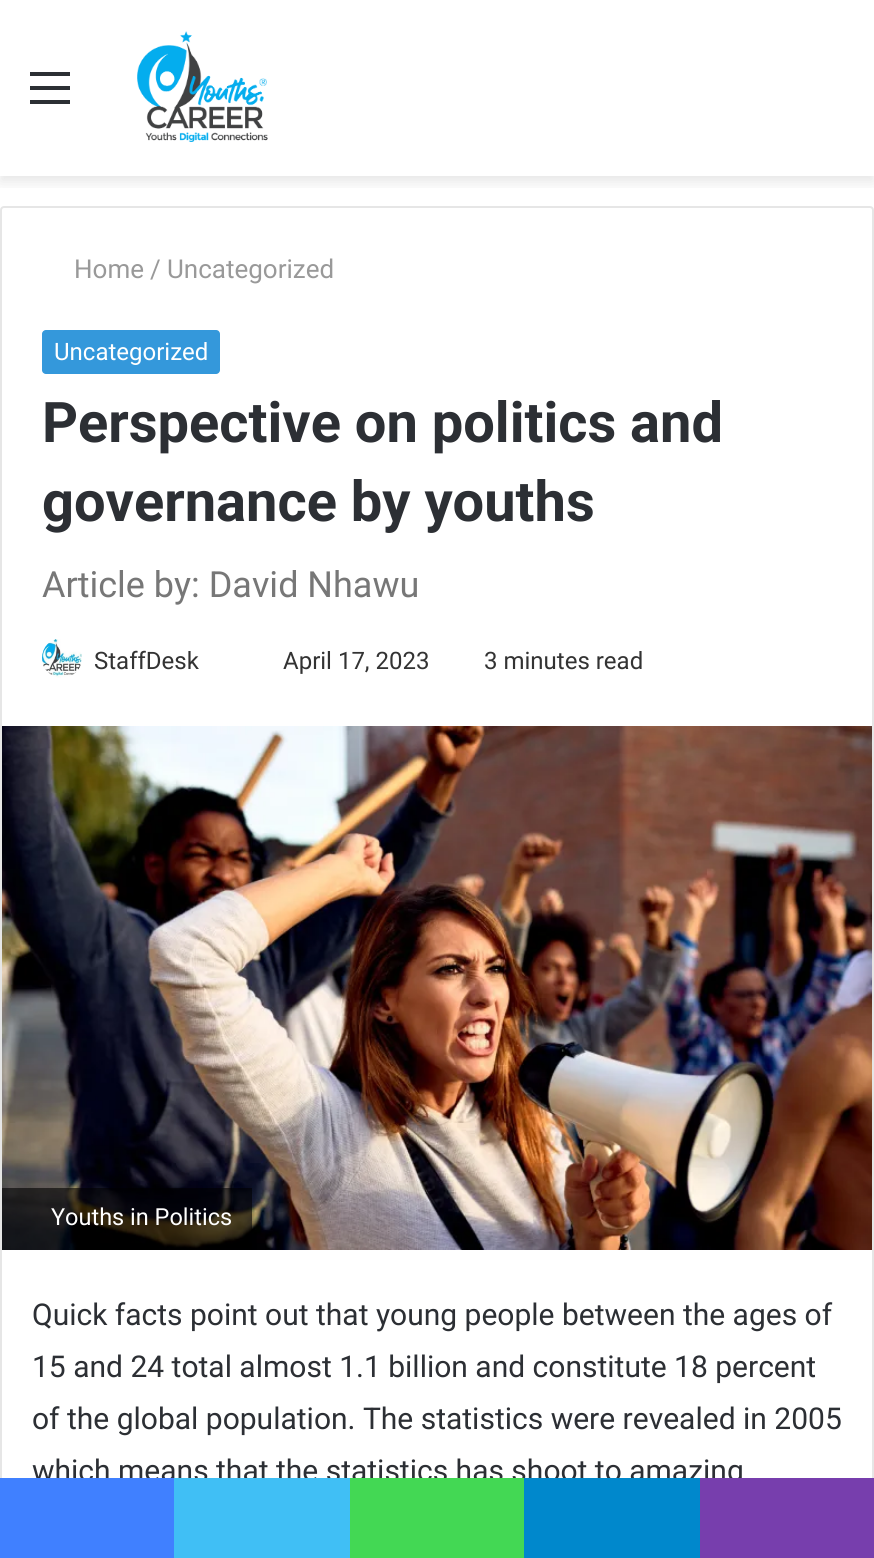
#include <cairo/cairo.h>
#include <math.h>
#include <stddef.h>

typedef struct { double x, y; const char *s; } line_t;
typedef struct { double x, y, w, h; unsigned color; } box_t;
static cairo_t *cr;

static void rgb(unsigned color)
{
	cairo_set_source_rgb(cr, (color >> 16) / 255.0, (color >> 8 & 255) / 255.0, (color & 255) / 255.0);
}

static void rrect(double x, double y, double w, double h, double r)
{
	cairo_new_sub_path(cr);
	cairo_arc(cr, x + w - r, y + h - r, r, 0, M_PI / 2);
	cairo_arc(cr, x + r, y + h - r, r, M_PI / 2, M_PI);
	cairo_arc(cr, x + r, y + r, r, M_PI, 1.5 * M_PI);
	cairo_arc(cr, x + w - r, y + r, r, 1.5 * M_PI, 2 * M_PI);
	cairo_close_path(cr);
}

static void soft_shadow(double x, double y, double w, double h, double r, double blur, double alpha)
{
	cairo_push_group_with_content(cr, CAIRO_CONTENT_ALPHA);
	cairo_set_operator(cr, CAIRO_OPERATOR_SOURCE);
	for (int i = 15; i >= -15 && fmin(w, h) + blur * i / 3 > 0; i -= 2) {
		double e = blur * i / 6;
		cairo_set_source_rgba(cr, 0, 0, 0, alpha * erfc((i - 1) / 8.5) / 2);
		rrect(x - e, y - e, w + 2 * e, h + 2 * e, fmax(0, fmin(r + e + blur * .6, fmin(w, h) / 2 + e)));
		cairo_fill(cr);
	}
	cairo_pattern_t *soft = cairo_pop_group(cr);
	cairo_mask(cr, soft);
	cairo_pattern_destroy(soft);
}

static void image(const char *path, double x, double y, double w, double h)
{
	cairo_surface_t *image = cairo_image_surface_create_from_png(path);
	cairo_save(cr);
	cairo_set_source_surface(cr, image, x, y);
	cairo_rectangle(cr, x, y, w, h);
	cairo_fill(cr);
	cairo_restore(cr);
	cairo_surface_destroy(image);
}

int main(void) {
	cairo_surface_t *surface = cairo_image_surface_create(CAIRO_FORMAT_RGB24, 874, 1558);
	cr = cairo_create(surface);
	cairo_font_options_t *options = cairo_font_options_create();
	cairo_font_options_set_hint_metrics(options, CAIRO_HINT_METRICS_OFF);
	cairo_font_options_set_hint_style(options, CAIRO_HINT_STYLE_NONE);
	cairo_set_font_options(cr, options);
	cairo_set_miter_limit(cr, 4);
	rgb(0xffffff);
	cairo_paint(cr);
	cairo_save(cr);
	cairo_rectangle(cr, 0, 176, 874, 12);
	cairo_clip(cr);
	rgb(0x000000);
	soft_shadow(0, 6, 874, 176, 0, 7, 0.1);
	cairo_restore(cr);
	{
		static const box_t items[] = {
			{30, 86, 40, 4, 0x2c2f34},
			{30, 72, 40, 4, 0x2c2f34},
			{30, 100, 40, 4, 0x2c2f34},
		};
		for (size_t i = 0; i < sizeof items / sizeof *items; i++) {
			rgb(items[i].color);
			cairo_rectangle(cr, items[i].x, items[i].y, items[i].w, items[i].h);
			cairo_fill(cr);
		}
	}
	image("img/1.png", 137, 31, 131, 111);
	rrect(1, 207, 872, 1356, 3);
	rgb(0xe6e6e6);
	cairo_stroke(cr);
	rgb(0x3498db);
	rrect(42, 330, 178, 44, 4);
	cairo_fill(cr);
	image("img/2.png", 42, 639, 40, 39);
	image("img/3.png", 2, 726, 870, 524);
	cairo_set_source_rgba(cr, 0, 0, 0, 0.6);
	cairo_rectangle(cr, 2, 1188, 250, 62);
	cairo_fill(cr);
	cairo_select_font_face(cr, "Roboto", CAIRO_FONT_SLANT_NORMAL, CAIRO_FONT_WEIGHT_NORMAL);
	cairo_set_font_size(cr, 26);
	rgb(0x999999);
	{
		static const line_t items[] = {
			{74, 278, "Home"},
			{150, 278, "/"},
			{167, 278, "Uncategorized"},
		};
		for (size_t i = 0; i < sizeof items / sizeof *items; i++) {
			cairo_move_to(cr, items[i].x, items[i].y);
			cairo_show_text(cr, items[i].s);
		}
	}
	cairo_set_font_size(cr, 24);
	rgb(0xffffff);
	cairo_move_to(cr, 54, 360);
	cairo_show_text(cr, "Uncategorized");
	cairo_select_font_face(cr, "Roboto", CAIRO_FONT_SLANT_NORMAL, CAIRO_FONT_WEIGHT_BOLD);
	cairo_set_font_size(cr, 56);
	rgb(0x2c2f34);
	cairo_move_to(cr, 42, 442);
	cairo_show_text(cr, "Perspective on politics and");
	cairo_move_to(cr, 42, 521);
	cairo_show_text(cr, "governance by youths");
	cairo_select_font_face(cr, "Roboto", CAIRO_FONT_SLANT_NORMAL, CAIRO_FONT_WEIGHT_NORMAL);
	cairo_set_font_size(cr, 36);
	rgb(0x777777);
	cairo_move_to(cr, 42, 597);
	cairo_show_text(cr, "Article by: David Nhawu");
	cairo_set_font_size(cr, 24);
	rgb(0x333333);
	{
		static const line_t items[] = {
			{94, 669, "StaffDesk"},
			{283, 669, "April 17, 2023"},
			{484, 669, "3 minutes read"},
		};
		for (size_t i = 0; i < sizeof items / sizeof *items; i++) {
			cairo_move_to(cr, items[i].x, items[i].y);
			cairo_show_text(cr, items[i].s);
		}
	}
	cairo_set_font_size(cr, 23.5);
	rgb(0xffffff);
	cairo_move_to(cr, 51, 1225);
	cairo_show_text(cr, "Youths in Politics");
	cairo_set_font_size(cr, 30);
	rgb(0x2c2f34);
	{
		static const line_t items[] = {
			{32, 1325, "Quick facts point out that young people between the ages of"},
			{32, 1377, "15 and 24 total almost 1.1 billion and constitute 18 percent"},
			{32, 1429, "of the global population. The statistics were revealed in 2005"},
			{32, 1481, "which means that the statistics has shoot to amazing"},
		};
		for (size_t i = 0; i < sizeof items / sizeof *items; i++) {
			cairo_move_to(cr, items[i].x, items[i].y);
			cairo_show_text(cr, items[i].s);
		}
	}
	{
		static const box_t items[] = {
			{0, 1478, 174, 80, 0x4080ff},
			{174, 1478, 176, 80, 0x40bff5},
			{350, 1478, 174, 80, 0x43d854},
			{524, 1478, 176, 80, 0x0088cc},
			{700, 1478, 174, 80, 0x773ead},
		};
		for (size_t i = 0; i < sizeof items / sizeof *items; i++) {
			rgb(items[i].color);
			cairo_rectangle(cr, items[i].x, items[i].y, items[i].w, items[i].h);
			cairo_fill(cr);
		}
	}
	cairo_surface_write_to_png(surface, "page.png");
	cairo_font_options_destroy(options);
	cairo_destroy(cr);
	cairo_surface_destroy(surface);
	return 0;
}
